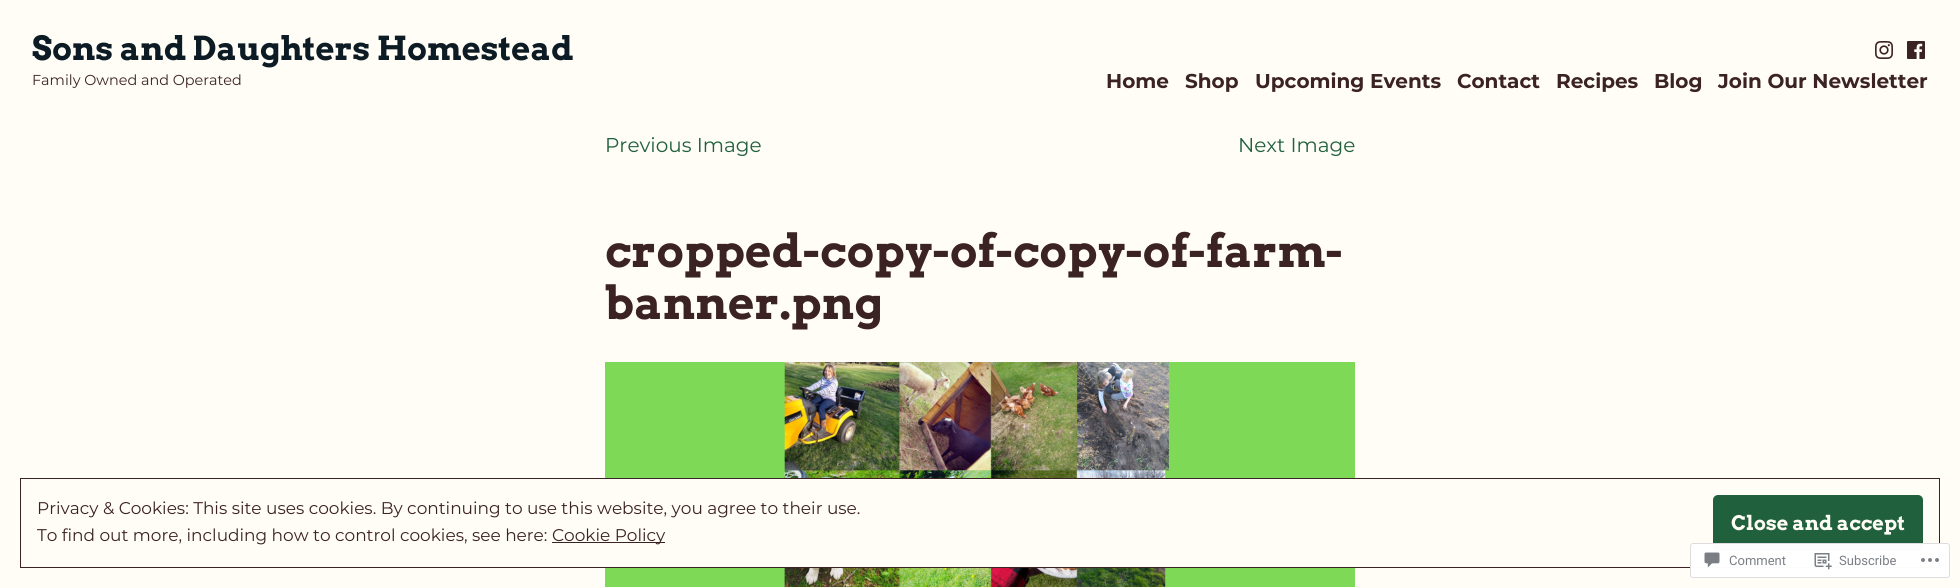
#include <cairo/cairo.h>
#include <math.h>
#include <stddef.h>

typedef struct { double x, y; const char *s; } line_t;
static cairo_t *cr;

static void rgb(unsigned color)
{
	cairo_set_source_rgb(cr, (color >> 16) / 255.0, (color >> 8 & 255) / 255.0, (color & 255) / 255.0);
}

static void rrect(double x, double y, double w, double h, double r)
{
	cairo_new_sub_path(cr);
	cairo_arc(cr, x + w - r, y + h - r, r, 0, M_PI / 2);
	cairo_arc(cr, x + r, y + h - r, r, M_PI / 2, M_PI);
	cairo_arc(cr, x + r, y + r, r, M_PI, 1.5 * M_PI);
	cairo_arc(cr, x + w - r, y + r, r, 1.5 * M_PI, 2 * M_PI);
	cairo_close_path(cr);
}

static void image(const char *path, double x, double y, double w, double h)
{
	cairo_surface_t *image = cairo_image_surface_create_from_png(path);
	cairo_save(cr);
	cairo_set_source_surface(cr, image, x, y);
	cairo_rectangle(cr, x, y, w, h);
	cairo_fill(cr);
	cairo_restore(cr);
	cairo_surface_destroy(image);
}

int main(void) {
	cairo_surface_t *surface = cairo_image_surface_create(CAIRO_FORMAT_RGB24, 1960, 588);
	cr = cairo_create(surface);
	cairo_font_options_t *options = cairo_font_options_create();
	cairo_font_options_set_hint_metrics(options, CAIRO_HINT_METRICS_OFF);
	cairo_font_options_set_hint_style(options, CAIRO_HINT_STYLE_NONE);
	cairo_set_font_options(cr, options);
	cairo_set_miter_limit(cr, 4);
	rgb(0xfffdf6);
	cairo_paint(cr);
	image("img/1.png", 1875, 41, 18, 18);
	image("img/2.png", 1907, 41, 18, 18);
	image("img/3.png", 605, 362, 750, 225);
	rgb(0xfffdf6);
	cairo_rectangle(cr, 605, 479, 750, 88);
	cairo_fill(cr);
	cairo_rectangle(cr, 20.5, 478.5, 1919, 89);
	rgb(0x3c2323);
	cairo_set_line_width(cr, 1);
	cairo_stroke(cr);
	cairo_rectangle(cr, 552, 542, 113, 1);
	cairo_fill(cr);
	rgb(0x20603c);
	rrect(1713, 495, 210, 56, 5);
	cairo_fill(cr);
	cairo_set_source_rgba(cr, 1, 1, 1, 0.98);
	rrect(1690, 543, 260, 35, 3);
	cairo_fill(cr);
	rrect(1690.5, 543.5, 259, 34, 2.5);
	cairo_set_source_rgba(cr, 0.863, 0.863, 0.871, 0.98);
	cairo_stroke(cr);
	image("img/4.png", 1704, 552, 16, 16);
	image("img/5.png", 1814, 553, 18, 17);
	image("img/6.png", 1921, 558, 18, 4);
	cairo_select_font_face(cr, "Arvo", CAIRO_FONT_SLANT_NORMAL, CAIRO_FONT_WEIGHT_BOLD);
	cairo_set_font_size(cr, 32.9);
	rgb(0x0d1b24);
	cairo_move_to(cr, 32, 60);
	cairo_show_text(cr, "Sons and Daughters Homestead");
	cairo_select_font_face(cr, "Montserrat", CAIRO_FONT_SLANT_NORMAL, CAIRO_FONT_WEIGHT_NORMAL);
	cairo_set_font_size(cr, 14.4);
	rgb(0x3c2323);
	cairo_move_to(cr, 32, 85);
	cairo_show_text(cr, "Family Owned and Operated");
	cairo_select_font_face(cr, "Montserrat", CAIRO_FONT_SLANT_NORMAL, CAIRO_FONT_WEIGHT_BOLD);
	cairo_set_font_size(cr, 20);
	{
		static const line_t items[] = {
			{1106, 88, "Home"},
			{1185, 88, "Shop"},
			{1255, 88, "Upcoming Events"},
			{1457, 88, "Contact"},
			{1556, 88, "Recipes"},
			{1654, 88, "Blog"},
			{1718, 88, "Join Our Newsletter"},
		};
		for (size_t i = 0; i < sizeof items / sizeof *items; i++) {
			cairo_move_to(cr, items[i].x, items[i].y);
			cairo_show_text(cr, items[i].s);
		}
	}
	cairo_select_font_face(cr, "Montserrat", CAIRO_FONT_SLANT_NORMAL, CAIRO_FONT_WEIGHT_NORMAL);
	rgb(0x20603c);
	cairo_move_to(cr, 605, 152);
	cairo_show_text(cr, "Previous Image");
	cairo_move_to(cr, 1238, 152);
	cairo_show_text(cr, "Next Image");
	cairo_select_font_face(cr, "Arvo", CAIRO_FONT_SLANT_NORMAL, CAIRO_FONT_WEIGHT_BOLD);
	cairo_set_font_size(cr, 45.75);
	rgb(0x3c2323);
	cairo_move_to(cr, 605, 267);
	cairo_show_text(cr, "cropped-copy-of-copy-of-farm-");
	cairo_move_to(cr, 605, 319);
	cairo_show_text(cr, "banner.png");
	cairo_select_font_face(cr, "Montserrat", CAIRO_FONT_SLANT_NORMAL, CAIRO_FONT_WEIGHT_NORMAL);
	cairo_set_font_size(cr, 16.95);
	{
		static const line_t items[] = {
			{37, 514, "Privacy & Cookies: This site uses cookies. By continuing to use this website, you agree to their use."},
			{37, 541, "To find out more, including how to control cookies, see here:"},
			{552, 541, "Cookie Policy"},
		};
		for (size_t i = 0; i < sizeof items / sizeof *items; i++) {
			cairo_move_to(cr, items[i].x, items[i].y);
			cairo_show_text(cr, items[i].s);
		}
	}
	cairo_select_font_face(cr, "Arvo", CAIRO_FONT_SLANT_NORMAL, CAIRO_FONT_WEIGHT_BOLD);
	cairo_set_font_size(cr, 20);
	rgb(0xfffdf6);
	cairo_move_to(cr, 1731, 530);
	cairo_show_text(cr, "Close and accept");
	cairo_select_font_face(cr, "Roboto", CAIRO_FONT_SLANT_NORMAL, CAIRO_FONT_WEIGHT_NORMAL);
	cairo_set_font_size(cr, 13);
	rgb(0x7b7f84);
	cairo_move_to(cr, 1729, 565);
	cairo_show_text(cr, "Comment");
	cairo_move_to(cr, 1839, 565);
	cairo_show_text(cr, "Subscribe");
	cairo_surface_write_to_png(surface, "page.png");
	cairo_font_options_destroy(options);
	cairo_destroy(cr);
	cairo_surface_destroy(surface);
	return 0;
}
